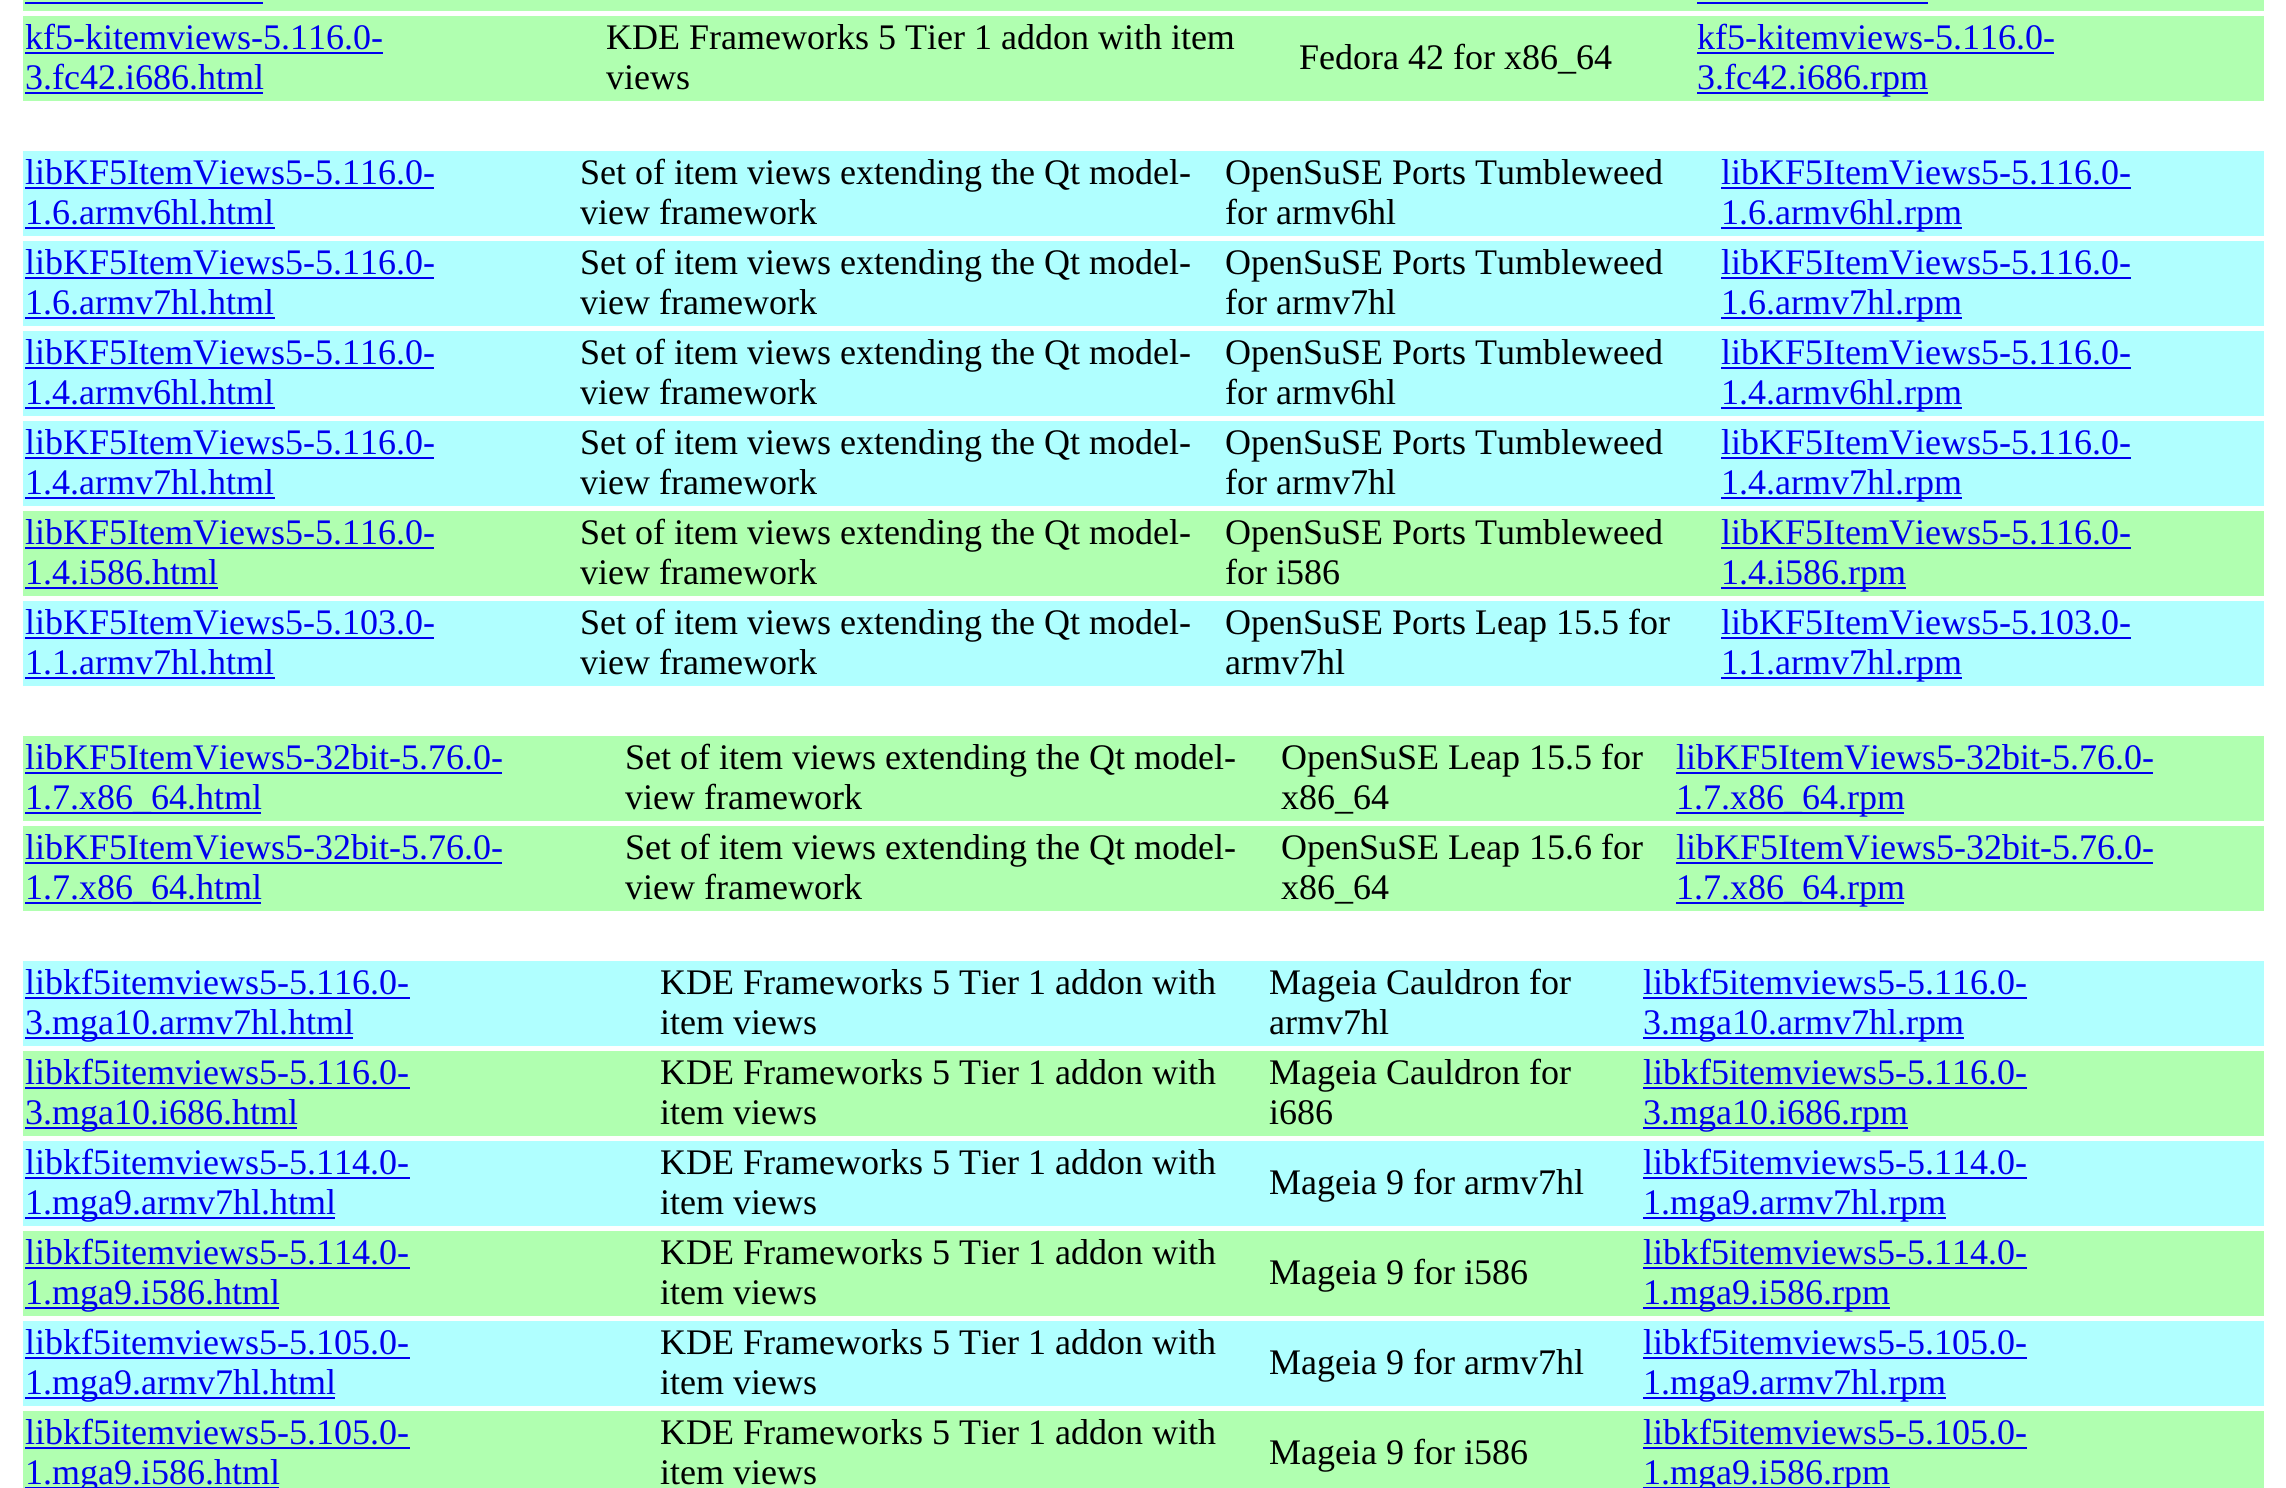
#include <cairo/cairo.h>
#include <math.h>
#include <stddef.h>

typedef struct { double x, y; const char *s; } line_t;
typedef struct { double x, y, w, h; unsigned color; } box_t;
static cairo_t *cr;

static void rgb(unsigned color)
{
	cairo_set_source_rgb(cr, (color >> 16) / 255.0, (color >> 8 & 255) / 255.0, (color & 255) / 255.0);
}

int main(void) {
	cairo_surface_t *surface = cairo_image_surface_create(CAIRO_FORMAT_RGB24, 2286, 1488);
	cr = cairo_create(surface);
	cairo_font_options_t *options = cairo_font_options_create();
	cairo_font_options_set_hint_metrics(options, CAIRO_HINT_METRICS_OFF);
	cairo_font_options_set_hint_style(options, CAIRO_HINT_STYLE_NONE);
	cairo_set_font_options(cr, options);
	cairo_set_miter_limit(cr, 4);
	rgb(0xffffff);
	cairo_paint(cr);
	{
		static const box_t items[] = {
			{23, 0, 2241, 11, 0xb0ffb0},
			{25, 2, 238, 2, 0x0000ee},
			{1697, 2, 231, 2, 0x0000ee},
			{23, 16, 2241, 85, 0xb0ffb0},
			{25, 52, 358, 2, 0x0000ee},
			{25, 92, 238, 2, 0x0000ee},
			{1697, 52, 357, 2, 0x0000ee},
			{1697, 92, 231, 2, 0x0000ee},
			{23, 151, 2241, 85, 0xb0ffff},
			{25, 187, 409, 2, 0x0000ee},
			{25, 227, 250, 2, 0x0000ee},
			{1721, 187, 410, 2, 0x0000ee},
			{1721, 227, 241, 2, 0x0000ee},
			{23, 241, 2241, 85, 0xb0ffff},
			{25, 277, 409, 2, 0x0000ee},
			{25, 317, 250, 2, 0x0000ee},
			{1721, 277, 410, 2, 0x0000ee},
			{1721, 317, 241, 2, 0x0000ee},
			{23, 331, 2241, 85, 0xb0ffff},
			{25, 367, 409, 2, 0x0000ee},
			{25, 407, 250, 2, 0x0000ee},
			{1721, 367, 410, 2, 0x0000ee},
			{1721, 407, 241, 2, 0x0000ee},
			{23, 421, 2241, 85, 0xb0ffff},
			{25, 457, 409, 2, 0x0000ee},
			{25, 497, 250, 2, 0x0000ee},
			{1721, 457, 410, 2, 0x0000ee},
			{1721, 497, 241, 2, 0x0000ee},
			{23, 511, 2241, 85, 0xb0ffb0},
			{25, 547, 409, 2, 0x0000ee},
			{25, 587, 193, 2, 0x0000ee},
			{1721, 547, 410, 2, 0x0000ee},
			{1721, 587, 185, 2, 0x0000ee},
			{23, 601, 2241, 85, 0xb0ffff},
			{25, 637, 409, 2, 0x0000ee},
			{25, 677, 250, 2, 0x0000ee},
			{1721, 637, 410, 2, 0x0000ee},
			{1721, 677, 241, 2, 0x0000ee},
			{23, 736, 2241, 85, 0xb0ffb0},
			{25, 772, 477, 2, 0x0000ee},
			{25, 812, 236, 2, 0x0000ee},
			{1676, 772, 477, 2, 0x0000ee},
			{1676, 812, 228, 2, 0x0000ee},
			{23, 826, 2241, 85, 0xb0ffb0},
			{25, 862, 477, 2, 0x0000ee},
			{25, 902, 236, 2, 0x0000ee},
			{1676, 862, 477, 2, 0x0000ee},
			{1676, 902, 228, 2, 0x0000ee},
			{23, 961, 2241, 85, 0xb0ffff},
			{25, 997, 385, 2, 0x0000ee},
			{25, 1037, 328, 2, 0x0000ee},
			{1643, 997, 384, 2, 0x0000ee},
			{1643, 1037, 321, 2, 0x0000ee},
			{23, 1051, 2241, 85, 0xb0ffb0},
			{25, 1087, 385, 2, 0x0000ee},
			{25, 1127, 272, 2, 0x0000ee},
			{1643, 1087, 384, 2, 0x0000ee},
			{1643, 1127, 265, 2, 0x0000ee},
			{23, 1141, 2241, 85, 0xb0ffff},
			{25, 1177, 385, 2, 0x0000ee},
			{25, 1217, 310, 2, 0x0000ee},
			{1643, 1177, 384, 2, 0x0000ee},
			{1643, 1217, 303, 2, 0x0000ee},
			{23, 1231, 2241, 85, 0xb0ffb0},
			{25, 1267, 385, 2, 0x0000ee},
			{25, 1307, 254, 2, 0x0000ee},
			{1643, 1267, 384, 2, 0x0000ee},
			{1643, 1307, 247, 2, 0x0000ee},
			{23, 1321, 2241, 85, 0xb0ffff},
			{25, 1357, 385, 2, 0x0000ee},
			{25, 1397, 310, 2, 0x0000ee},
			{1643, 1357, 384, 2, 0x0000ee},
			{1643, 1397, 303, 2, 0x0000ee},
			{23, 1411, 2241, 77, 0xb0ffb0},
			{25, 1447, 385, 2, 0x0000ee},
			{25, 1487, 254, 1, 0x0000ee},
			{1643, 1447, 384, 2, 0x0000ee},
			{1643, 1487, 247, 1, 0x0000ee},
		};
		for (size_t i = 0; i < sizeof items / sizeof *items; i++) {
			rgb(items[i].color);
			cairo_rectangle(cr, items[i].x, items[i].y, items[i].w, items[i].h);
			cairo_fill(cr);
		}
	}
	cairo_select_font_face(cr, "Liberation Serif", CAIRO_FONT_SLANT_NORMAL, CAIRO_FONT_WEIGHT_NORMAL);
	cairo_set_font_size(cr, 36);
	cairo_move_to(cr, 25, 49);
	cairo_show_text(cr, "kf5-kitemviews-5.116.0-");
	cairo_move_to(cr, 25, 89);
	cairo_show_text(cr, "3.fc42.i686.html");
	rgb(0x000000);
	{
		static const line_t items[] = {
			{606, 49, "KDE Frameworks 5 Tier 1 addon with item"},
			{606, 89, "views"},
			{1299, 69, "Fedora 42 for x86_64"},
		};
		for (size_t i = 0; i < sizeof items / sizeof *items; i++) {
			cairo_move_to(cr, items[i].x, items[i].y);
			cairo_show_text(cr, items[i].s);
		}
	}
	rgb(0x0000ee);
	{
		static const line_t items[] = {
			{1697, 49, "kf5-kitemviews-5.116.0-"},
			{1697, 89, "3.fc42.i686.rpm"},
			{25, 184, "libKF5ItemViews5-5.116.0-"},
			{25, 224, "1.6.armv6hl.html"},
		};
		for (size_t i = 0; i < sizeof items / sizeof *items; i++) {
			cairo_move_to(cr, items[i].x, items[i].y);
			cairo_show_text(cr, items[i].s);
		}
	}
	rgb(0x000000);
	{
		static const line_t items[] = {
			{580, 184, "Set of item views extending the Qt model-"},
			{580, 224, "view framework"},
			{1225, 184, "OpenSuSE Ports Tumbleweed"},
			{1225, 224, "for armv6hl"},
		};
		for (size_t i = 0; i < sizeof items / sizeof *items; i++) {
			cairo_move_to(cr, items[i].x, items[i].y);
			cairo_show_text(cr, items[i].s);
		}
	}
	rgb(0x0000ee);
	{
		static const line_t items[] = {
			{1721, 184, "libKF5ItemViews5-5.116.0-"},
			{1721, 224, "1.6.armv6hl.rpm"},
			{25, 274, "libKF5ItemViews5-5.116.0-"},
			{25, 314, "1.6.armv7hl.html"},
		};
		for (size_t i = 0; i < sizeof items / sizeof *items; i++) {
			cairo_move_to(cr, items[i].x, items[i].y);
			cairo_show_text(cr, items[i].s);
		}
	}
	rgb(0x000000);
	{
		static const line_t items[] = {
			{580, 274, "Set of item views extending the Qt model-"},
			{580, 314, "view framework"},
			{1225, 274, "OpenSuSE Ports Tumbleweed"},
			{1225, 314, "for armv7hl"},
		};
		for (size_t i = 0; i < sizeof items / sizeof *items; i++) {
			cairo_move_to(cr, items[i].x, items[i].y);
			cairo_show_text(cr, items[i].s);
		}
	}
	rgb(0x0000ee);
	{
		static const line_t items[] = {
			{1721, 274, "libKF5ItemViews5-5.116.0-"},
			{1721, 314, "1.6.armv7hl.rpm"},
			{25, 364, "libKF5ItemViews5-5.116.0-"},
			{25, 404, "1.4.armv6hl.html"},
		};
		for (size_t i = 0; i < sizeof items / sizeof *items; i++) {
			cairo_move_to(cr, items[i].x, items[i].y);
			cairo_show_text(cr, items[i].s);
		}
	}
	rgb(0x000000);
	{
		static const line_t items[] = {
			{580, 364, "Set of item views extending the Qt model-"},
			{580, 404, "view framework"},
			{1225, 364, "OpenSuSE Ports Tumbleweed"},
			{1225, 404, "for armv6hl"},
		};
		for (size_t i = 0; i < sizeof items / sizeof *items; i++) {
			cairo_move_to(cr, items[i].x, items[i].y);
			cairo_show_text(cr, items[i].s);
		}
	}
	rgb(0x0000ee);
	{
		static const line_t items[] = {
			{1721, 364, "libKF5ItemViews5-5.116.0-"},
			{1721, 404, "1.4.armv6hl.rpm"},
			{25, 454, "libKF5ItemViews5-5.116.0-"},
			{25, 494, "1.4.armv7hl.html"},
		};
		for (size_t i = 0; i < sizeof items / sizeof *items; i++) {
			cairo_move_to(cr, items[i].x, items[i].y);
			cairo_show_text(cr, items[i].s);
		}
	}
	rgb(0x000000);
	{
		static const line_t items[] = {
			{580, 454, "Set of item views extending the Qt model-"},
			{580, 494, "view framework"},
			{1225, 454, "OpenSuSE Ports Tumbleweed"},
			{1225, 494, "for armv7hl"},
		};
		for (size_t i = 0; i < sizeof items / sizeof *items; i++) {
			cairo_move_to(cr, items[i].x, items[i].y);
			cairo_show_text(cr, items[i].s);
		}
	}
	rgb(0x0000ee);
	{
		static const line_t items[] = {
			{1721, 454, "libKF5ItemViews5-5.116.0-"},
			{1721, 494, "1.4.armv7hl.rpm"},
			{25, 544, "libKF5ItemViews5-5.116.0-"},
			{25, 584, "1.4.i586.html"},
		};
		for (size_t i = 0; i < sizeof items / sizeof *items; i++) {
			cairo_move_to(cr, items[i].x, items[i].y);
			cairo_show_text(cr, items[i].s);
		}
	}
	rgb(0x000000);
	{
		static const line_t items[] = {
			{580, 544, "Set of item views extending the Qt model-"},
			{580, 584, "view framework"},
			{1225, 544, "OpenSuSE Ports Tumbleweed"},
			{1225, 584, "for i586"},
		};
		for (size_t i = 0; i < sizeof items / sizeof *items; i++) {
			cairo_move_to(cr, items[i].x, items[i].y);
			cairo_show_text(cr, items[i].s);
		}
	}
	rgb(0x0000ee);
	{
		static const line_t items[] = {
			{1721, 544, "libKF5ItemViews5-5.116.0-"},
			{1721, 584, "1.4.i586.rpm"},
			{25, 634, "libKF5ItemViews5-5.103.0-"},
			{25, 674, "1.1.armv7hl.html"},
		};
		for (size_t i = 0; i < sizeof items / sizeof *items; i++) {
			cairo_move_to(cr, items[i].x, items[i].y);
			cairo_show_text(cr, items[i].s);
		}
	}
	rgb(0x000000);
	{
		static const line_t items[] = {
			{580, 634, "Set of item views extending the Qt model-"},
			{580, 674, "view framework"},
			{1225, 634, "OpenSuSE Ports Leap 15.5 for"},
			{1225, 674, "armv7hl"},
		};
		for (size_t i = 0; i < sizeof items / sizeof *items; i++) {
			cairo_move_to(cr, items[i].x, items[i].y);
			cairo_show_text(cr, items[i].s);
		}
	}
	rgb(0x0000ee);
	{
		static const line_t items[] = {
			{1721, 634, "libKF5ItemViews5-5.103.0-"},
			{1721, 674, "1.1.armv7hl.rpm"},
			{25, 769, "libKF5ItemViews5-32bit-5.76.0-"},
			{25, 809, "1.7.x86_64.html"},
		};
		for (size_t i = 0; i < sizeof items / sizeof *items; i++) {
			cairo_move_to(cr, items[i].x, items[i].y);
			cairo_show_text(cr, items[i].s);
		}
	}
	rgb(0x000000);
	{
		static const line_t items[] = {
			{625, 769, "Set of item views extending the Qt model-"},
			{625, 809, "view framework"},
			{1281, 769, "OpenSuSE Leap 15.5 for"},
			{1281, 809, "x86_64"},
		};
		for (size_t i = 0; i < sizeof items / sizeof *items; i++) {
			cairo_move_to(cr, items[i].x, items[i].y);
			cairo_show_text(cr, items[i].s);
		}
	}
	rgb(0x0000ee);
	{
		static const line_t items[] = {
			{1676, 769, "libKF5ItemViews5-32bit-5.76.0-"},
			{1676, 809, "1.7.x86_64.rpm"},
			{25, 859, "libKF5ItemViews5-32bit-5.76.0-"},
			{25, 899, "1.7.x86_64.html"},
		};
		for (size_t i = 0; i < sizeof items / sizeof *items; i++) {
			cairo_move_to(cr, items[i].x, items[i].y);
			cairo_show_text(cr, items[i].s);
		}
	}
	rgb(0x000000);
	{
		static const line_t items[] = {
			{625, 859, "Set of item views extending the Qt model-"},
			{625, 899, "view framework"},
			{1281, 859, "OpenSuSE Leap 15.6 for"},
			{1281, 899, "x86_64"},
		};
		for (size_t i = 0; i < sizeof items / sizeof *items; i++) {
			cairo_move_to(cr, items[i].x, items[i].y);
			cairo_show_text(cr, items[i].s);
		}
	}
	rgb(0x0000ee);
	{
		static const line_t items[] = {
			{1676, 859, "libKF5ItemViews5-32bit-5.76.0-"},
			{1676, 899, "1.7.x86_64.rpm"},
			{25, 994, "libkf5itemviews5-5.116.0-"},
			{25, 1034, "3.mga10.armv7hl.html"},
		};
		for (size_t i = 0; i < sizeof items / sizeof *items; i++) {
			cairo_move_to(cr, items[i].x, items[i].y);
			cairo_show_text(cr, items[i].s);
		}
	}
	rgb(0x000000);
	{
		static const line_t items[] = {
			{660, 994, "KDE Frameworks 5 Tier 1 addon with"},
			{660, 1034, "item views"},
			{1269, 994, "Mageia Cauldron for"},
			{1269, 1034, "armv7hl"},
		};
		for (size_t i = 0; i < sizeof items / sizeof *items; i++) {
			cairo_move_to(cr, items[i].x, items[i].y);
			cairo_show_text(cr, items[i].s);
		}
	}
	rgb(0x0000ee);
	{
		static const line_t items[] = {
			{1643, 994, "libkf5itemviews5-5.116.0-"},
			{1643, 1034, "3.mga10.armv7hl.rpm"},
			{25, 1084, "libkf5itemviews5-5.116.0-"},
			{25, 1124, "3.mga10.i686.html"},
		};
		for (size_t i = 0; i < sizeof items / sizeof *items; i++) {
			cairo_move_to(cr, items[i].x, items[i].y);
			cairo_show_text(cr, items[i].s);
		}
	}
	rgb(0x000000);
	{
		static const line_t items[] = {
			{660, 1084, "KDE Frameworks 5 Tier 1 addon with"},
			{660, 1124, "item views"},
			{1269, 1084, "Mageia Cauldron for"},
			{1269, 1124, "i686"},
		};
		for (size_t i = 0; i < sizeof items / sizeof *items; i++) {
			cairo_move_to(cr, items[i].x, items[i].y);
			cairo_show_text(cr, items[i].s);
		}
	}
	rgb(0x0000ee);
	{
		static const line_t items[] = {
			{1643, 1084, "libkf5itemviews5-5.116.0-"},
			{1643, 1124, "3.mga10.i686.rpm"},
			{25, 1174, "libkf5itemviews5-5.114.0-"},
			{25, 1214, "1.mga9.armv7hl.html"},
		};
		for (size_t i = 0; i < sizeof items / sizeof *items; i++) {
			cairo_move_to(cr, items[i].x, items[i].y);
			cairo_show_text(cr, items[i].s);
		}
	}
	rgb(0x000000);
	{
		static const line_t items[] = {
			{660, 1174, "KDE Frameworks 5 Tier 1 addon with"},
			{660, 1214, "item views"},
			{1269, 1194, "Mageia 9 for armv7hl"},
		};
		for (size_t i = 0; i < sizeof items / sizeof *items; i++) {
			cairo_move_to(cr, items[i].x, items[i].y);
			cairo_show_text(cr, items[i].s);
		}
	}
	rgb(0x0000ee);
	{
		static const line_t items[] = {
			{1643, 1174, "libkf5itemviews5-5.114.0-"},
			{1643, 1214, "1.mga9.armv7hl.rpm"},
			{25, 1264, "libkf5itemviews5-5.114.0-"},
			{25, 1304, "1.mga9.i586.html"},
		};
		for (size_t i = 0; i < sizeof items / sizeof *items; i++) {
			cairo_move_to(cr, items[i].x, items[i].y);
			cairo_show_text(cr, items[i].s);
		}
	}
	rgb(0x000000);
	{
		static const line_t items[] = {
			{660, 1264, "KDE Frameworks 5 Tier 1 addon with"},
			{660, 1304, "item views"},
			{1269, 1284, "Mageia 9 for i586"},
		};
		for (size_t i = 0; i < sizeof items / sizeof *items; i++) {
			cairo_move_to(cr, items[i].x, items[i].y);
			cairo_show_text(cr, items[i].s);
		}
	}
	rgb(0x0000ee);
	{
		static const line_t items[] = {
			{1643, 1264, "libkf5itemviews5-5.114.0-"},
			{1643, 1304, "1.mga9.i586.rpm"},
			{25, 1354, "libkf5itemviews5-5.105.0-"},
			{25, 1394, "1.mga9.armv7hl.html"},
		};
		for (size_t i = 0; i < sizeof items / sizeof *items; i++) {
			cairo_move_to(cr, items[i].x, items[i].y);
			cairo_show_text(cr, items[i].s);
		}
	}
	rgb(0x000000);
	{
		static const line_t items[] = {
			{660, 1354, "KDE Frameworks 5 Tier 1 addon with"},
			{660, 1394, "item views"},
			{1269, 1374, "Mageia 9 for armv7hl"},
		};
		for (size_t i = 0; i < sizeof items / sizeof *items; i++) {
			cairo_move_to(cr, items[i].x, items[i].y);
			cairo_show_text(cr, items[i].s);
		}
	}
	rgb(0x0000ee);
	{
		static const line_t items[] = {
			{1643, 1354, "libkf5itemviews5-5.105.0-"},
			{1643, 1394, "1.mga9.armv7hl.rpm"},
			{25, 1444, "libkf5itemviews5-5.105.0-"},
			{25, 1484, "1.mga9.i586.html"},
		};
		for (size_t i = 0; i < sizeof items / sizeof *items; i++) {
			cairo_move_to(cr, items[i].x, items[i].y);
			cairo_show_text(cr, items[i].s);
		}
	}
	rgb(0x000000);
	{
		static const line_t items[] = {
			{660, 1444, "KDE Frameworks 5 Tier 1 addon with"},
			{660, 1484, "item views"},
			{1269, 1464, "Mageia 9 for i586"},
		};
		for (size_t i = 0; i < sizeof items / sizeof *items; i++) {
			cairo_move_to(cr, items[i].x, items[i].y);
			cairo_show_text(cr, items[i].s);
		}
	}
	rgb(0x0000ee);
	cairo_move_to(cr, 1643, 1444);
	cairo_show_text(cr, "libkf5itemviews5-5.105.0-");
	cairo_move_to(cr, 1643, 1484);
	cairo_show_text(cr, "1.mga9.i586.rpm");
	cairo_surface_write_to_png(surface, "page.png");
	cairo_font_options_destroy(options);
	cairo_destroy(cr);
	cairo_surface_destroy(surface);
	return 0;
}
